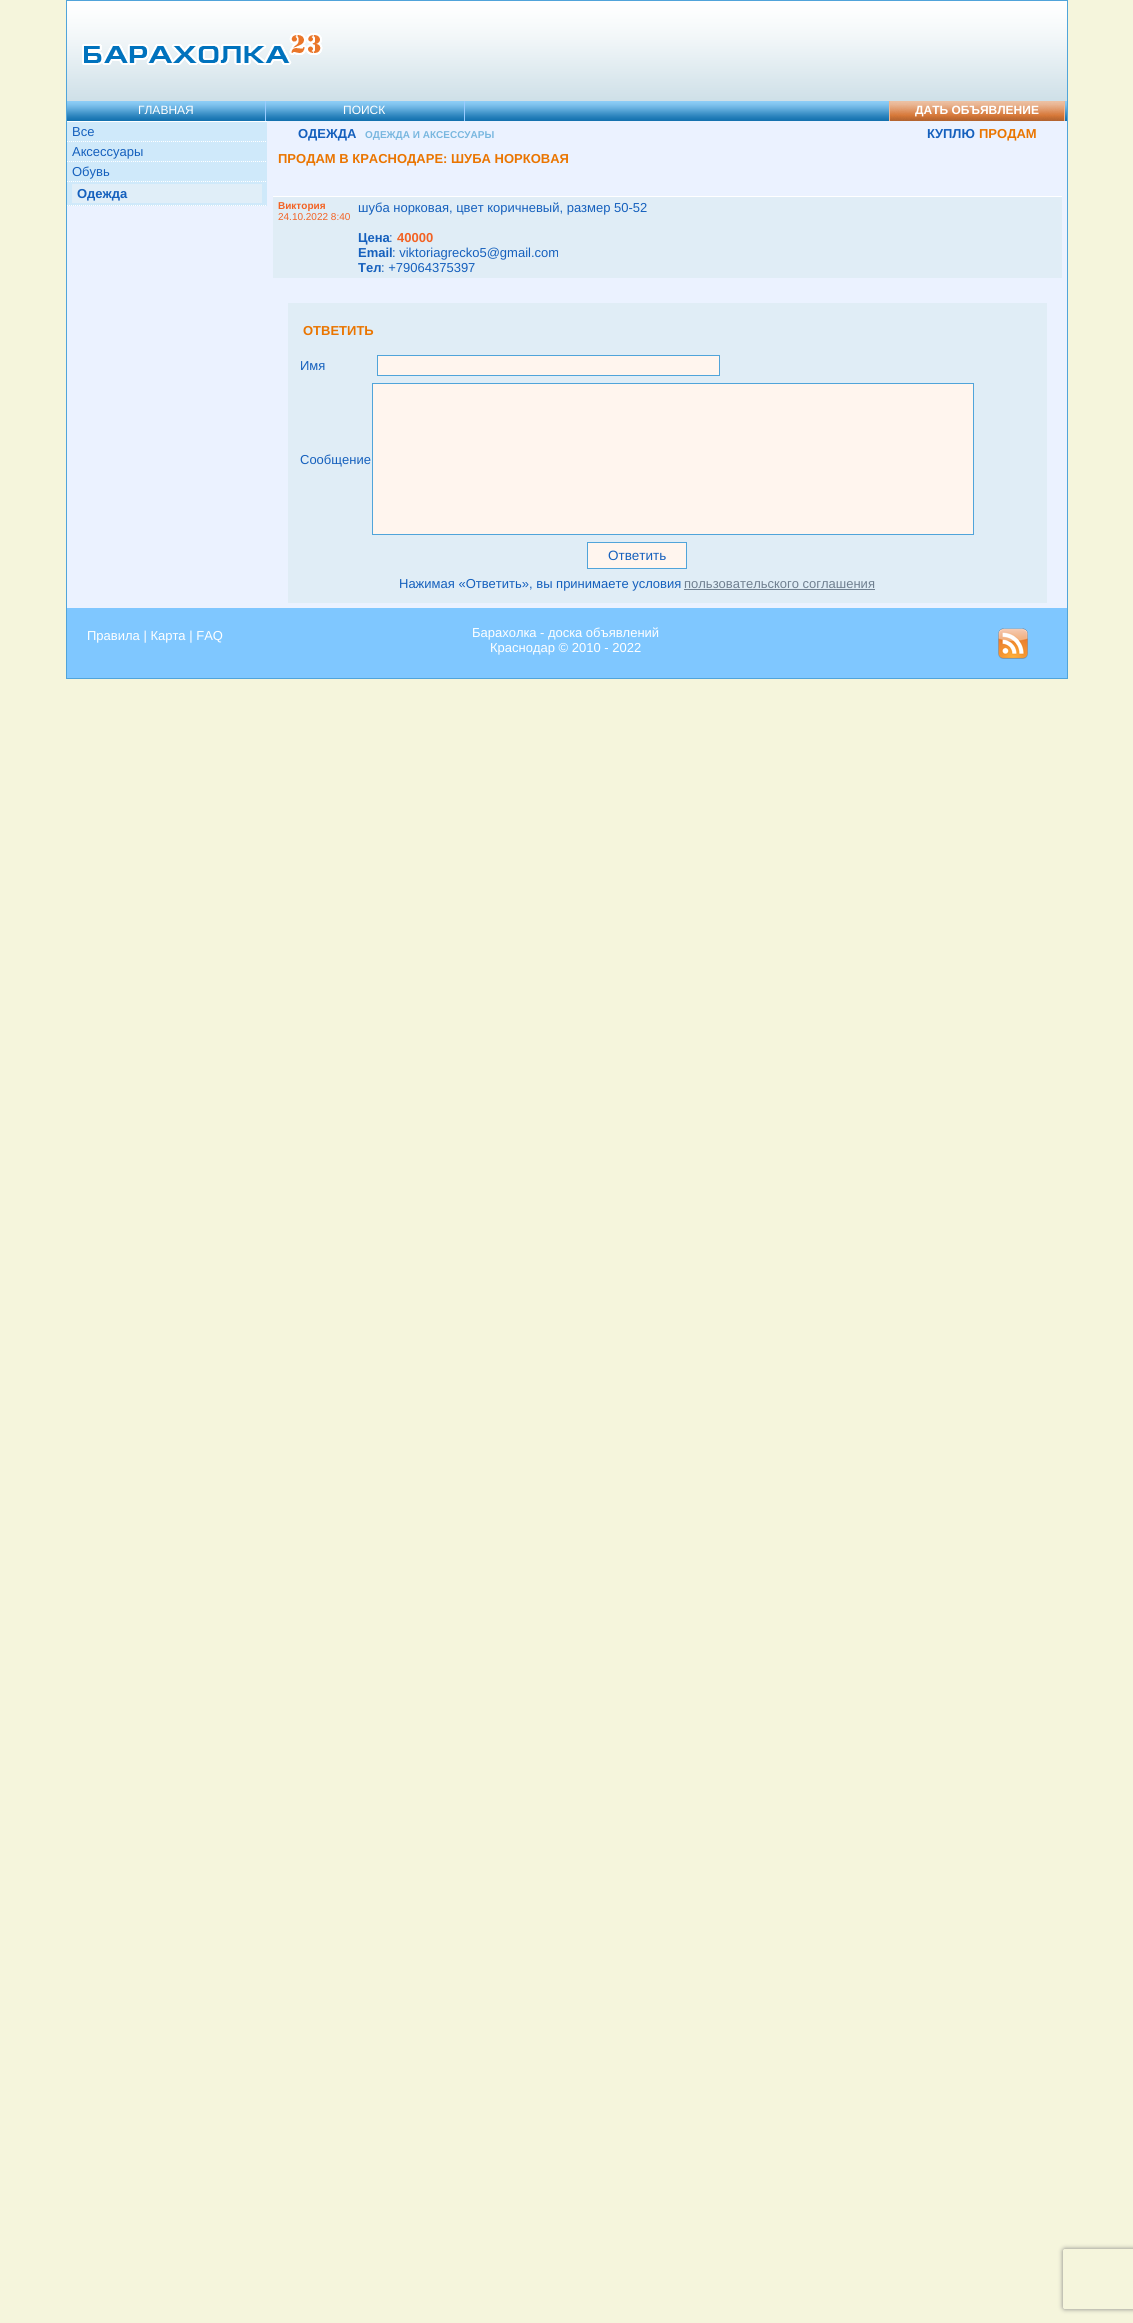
#include <cairo/cairo.h>
#include <math.h>
#include <stddef.h>

typedef struct { double x, y; const char *s; } line_t;
typedef struct { double x, y, w, h; unsigned color; } box_t;
static cairo_t *cr;

static void rgb(unsigned color)
{
	cairo_set_source_rgb(cr, (color >> 16) / 255.0, (color >> 8 & 255) / 255.0, (color & 255) / 255.0);
}

static void rrect(double x, double y, double w, double h, double r)
{
	cairo_new_sub_path(cr);
	cairo_arc(cr, x + w - r, y + h - r, r, 0, M_PI / 2);
	cairo_arc(cr, x + r, y + h - r, r, M_PI / 2, M_PI);
	cairo_arc(cr, x + r, y + r, r, M_PI, 1.5 * M_PI);
	cairo_arc(cr, x + w - r, y + r, r, 1.5 * M_PI, 2 * M_PI);
	cairo_close_path(cr);
}

static void soft_shadow(double x, double y, double w, double h, double r, double blur, double alpha)
{
	cairo_push_group_with_content(cr, CAIRO_CONTENT_ALPHA);
	cairo_set_operator(cr, CAIRO_OPERATOR_SOURCE);
	for (int i = 15; i >= -15 && fmin(w, h) + blur * i / 3 > 0; i -= 2) {
		double e = blur * i / 6;
		cairo_set_source_rgba(cr, 0, 0, 0, alpha * erfc((i - 1) / 8.5) / 2);
		rrect(x - e, y - e, w + 2 * e, h + 2 * e, fmax(0, fmin(r + e + blur * .6, fmin(w, h) / 2 + e)));
		cairo_fill(cr);
	}
	cairo_pattern_t *soft = cairo_pop_group(cr);
	cairo_mask(cr, soft);
	cairo_pattern_destroy(soft);
}

static void image(const char *path, double x, double y, double w, double h)
{
	cairo_surface_t *image = cairo_image_surface_create_from_png(path);
	cairo_save(cr);
	cairo_set_source_surface(cr, image, x, y);
	cairo_rectangle(cr, x, y, w, h);
	cairo_fill(cr);
	cairo_restore(cr);
	cairo_surface_destroy(image);
}

int main(void) {
	cairo_surface_t *surface = cairo_image_surface_create(CAIRO_FORMAT_RGB24, 1133, 2323);
	cr = cairo_create(surface);
	cairo_font_options_t *options = cairo_font_options_create();
	cairo_font_options_set_hint_metrics(options, CAIRO_HINT_METRICS_OFF);
	cairo_font_options_set_hint_style(options, CAIRO_HINT_STYLE_NONE);
	cairo_set_font_options(cr, options);
	cairo_set_miter_limit(cr, 4);
	rgb(0xf5f5dc);
	cairo_paint(cr);
	rgb(0xebf2ff);
	cairo_rectangle(cr, 67, 121, 1000, 487);
	cairo_fill(cr);
	cairo_rectangle(cr, 66.5, 0.5, 1001, 678);
	rgb(0x50a4da);
	cairo_set_line_width(cr, 1);
	cairo_stroke(cr);
	image("img/1.png", 67, 1, 1000, 100);
	image("img/2.png", 82, 33, 241, 32);
	image("img/3.png", 67, 101, 1000, 20);
	rgb(0x99ccff);
	cairo_rectangle(cr, 265, 101, 1, 20);
	cairo_fill(cr);
	cairo_rectangle(cr, 464, 101, 1, 20);
	cairo_fill(cr);
	image("img/4.png", 890, 101, 174, 20);
	{
		static const box_t items[] = {
			{1064, 101, 1, 20, 0xf4b890},
			{889, 101, 1, 20, 0xf4b890},
			{67, 122, 200, 84, 0xcfe9fa},
			{67, 121, 200, 1, 0xffffff},
		};
		for (size_t i = 0; i < sizeof items / sizeof *items; i++) {
			rgb(items[i].color);
			cairo_rectangle(cr, items[i].x, items[i].y, items[i].w, items[i].h);
			cairo_fill(cr);
		}
	}
	cairo_new_path(cr);
	cairo_move_to(cr, 67, 141.5);
	cairo_line_to(cr, 267, 141.5);
	cairo_set_dash(cr, (double[]){1, 1}, 2, 0);
	cairo_stroke(cr);
	cairo_new_path(cr);
	cairo_move_to(cr, 67, 161.5);
	cairo_line_to(cr, 267, 161.5);
	cairo_stroke(cr);
	cairo_new_path(cr);
	cairo_move_to(cr, 67, 181.5);
	cairo_line_to(cr, 267, 181.5);
	cairo_stroke(cr);
	cairo_new_path(cr);
	cairo_move_to(cr, 67, 205.5);
	cairo_line_to(cr, 267, 205.5);
	cairo_stroke(cr);
	{
		static const box_t items[] = {
			{72, 184, 190, 19, 0xe0eef8},
			{273, 197, 789, 81, 0xe0edf6},
			{273, 196, 789, 1, 0xffffff},
			{288, 303, 759, 300, 0xe0edf6},
		};
		for (size_t i = 0; i < sizeof items / sizeof *items; i++) {
			rgb(items[i].color);
			cairo_rectangle(cr, items[i].x, items[i].y, items[i].w, items[i].h);
			cairo_fill(cr);
		}
	}
	rgb(0xfff5ee);
	cairo_rectangle(cr, 377.5, 355.5, 342, 20);
	cairo_fill_preserve(cr);
	rgb(0x50a4da);
	cairo_set_dash(cr, NULL, 0, 0);
	cairo_stroke(cr);
	rgb(0xfff5ee);
	cairo_rectangle(cr, 372.5, 383.5, 601, 151);
	cairo_fill_preserve(cr);
	rgb(0x50a4da);
	cairo_stroke(cr);
	rgb(0xfff5ee);
	cairo_rectangle(cr, 587.5, 542.5, 99, 26);
	cairo_fill_preserve(cr);
	rgb(0x50a4da);
	cairo_stroke(cr);
	rgb(0x708090);
	cairo_rectangle(cr, 684, 589, 191, 1);
	cairo_fill(cr);
	rgb(0x7fc7ff);
	cairo_rectangle(cr, 67, 608, 1000, 70);
	cairo_fill(cr);
	image("img/5.png", 998, 628, 30, 31);
	cairo_save(cr);
	cairo_set_fill_rule(cr, CAIRO_FILL_RULE_EVEN_ODD);
	cairo_new_path(cr);
	cairo_move_to(cr, 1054, 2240);
	cairo_line_to(cr, 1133, 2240);
	cairo_line_to(cr, 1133, 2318);
	cairo_line_to(cr, 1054, 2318);
	cairo_close_path(cr);
	cairo_move_to(cr, 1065, 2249);
	cairo_line_to(cr, 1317, 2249);
	cairo_curve_to(cr, 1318, 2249, 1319, 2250, 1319, 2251);
	cairo_line_to(cr, 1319, 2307);
	cairo_curve_to(cr, 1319, 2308, 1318, 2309, 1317, 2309);
	cairo_line_to(cr, 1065, 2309);
	cairo_curve_to(cr, 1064, 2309, 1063, 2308, 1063, 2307);
	cairo_line_to(cr, 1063, 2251);
	cairo_curve_to(cr, 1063, 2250, 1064, 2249, 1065, 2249);
	cairo_close_path(cr);
	cairo_clip(cr);
	rgb(0x808080);
	soft_shadow(1063, 2249, 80, 60, 2, 2.5, 1);
	cairo_restore(cr);
	cairo_select_font_face(cr, "Liberation Sans", CAIRO_FONT_SLANT_NORMAL, CAIRO_FONT_WEIGHT_NORMAL);
	cairo_set_font_size(cr, 12);
	rgb(0xffffff);
	cairo_move_to(cr, 138, 114);
	cairo_show_text(cr, "ГЛАВНАЯ");
	cairo_move_to(cr, 343, 114);
	cairo_show_text(cr, "ПОИСК");
	cairo_select_font_face(cr, "Liberation Sans", CAIRO_FONT_SLANT_NORMAL, CAIRO_FONT_WEIGHT_BOLD);
	cairo_move_to(cr, 915, 114);
	cairo_show_text(cr, "ДАТЬ ОБЪЯВЛЕНИЕ");
	cairo_select_font_face(cr, "Liberation Sans", CAIRO_FONT_SLANT_NORMAL, CAIRO_FONT_WEIGHT_NORMAL);
	cairo_set_font_size(cr, 13);
	rgb(0x1560bd);
	{
		static const line_t items[] = {
			{72, 136, "Все"},
			{72, 156, "Аксессуары"},
			{72, 176, "Обувь"},
		};
		for (size_t i = 0; i < sizeof items / sizeof *items; i++) {
			cairo_move_to(cr, items[i].x, items[i].y);
			cairo_show_text(cr, items[i].s);
		}
	}
	cairo_select_font_face(cr, "Liberation Sans", CAIRO_FONT_SLANT_NORMAL, CAIRO_FONT_WEIGHT_BOLD);
	cairo_move_to(cr, 77, 198);
	cairo_show_text(cr, "Одежда");
	cairo_move_to(cr, 298, 138);
	cairo_show_text(cr, "ОДЕЖДА");
	cairo_set_font_size(cr, 10);
	rgb(0x79b7df);
	cairo_move_to(cr, 365, 138);
	cairo_show_text(cr, "ОДЕЖДА И АКСЕССУАРЫ");
	cairo_set_font_size(cr, 13);
	rgb(0x1560bd);
	cairo_move_to(cr, 927, 138);
	cairo_show_text(cr, "КУПЛЮ");
	rgb(0xea7500);
	cairo_move_to(cr, 979, 138);
	cairo_show_text(cr, "ПРОДАМ");
	cairo_move_to(cr, 278, 163);
	cairo_show_text(cr, "ПРОДАМ В КРАСНОДАРЕ: ШУБА НОРКОВАЯ");
	cairo_set_font_size(cr, 10);
	rgb(0xf36223);
	cairo_move_to(cr, 278, 209);
	cairo_show_text(cr, "Виктория");
	cairo_select_font_face(cr, "Liberation Sans", CAIRO_FONT_SLANT_NORMAL, CAIRO_FONT_WEIGHT_NORMAL);
	cairo_move_to(cr, 278, 220);
	cairo_show_text(cr, "24.10.2022 8:40");
	cairo_set_font_size(cr, 13);
	rgb(0x1560bd);
	cairo_move_to(cr, 358, 212);
	cairo_show_text(cr, "шуба норковая, цвет коричневый, размер 50-52");
	cairo_select_font_face(cr, "Liberation Sans", CAIRO_FONT_SLANT_NORMAL, CAIRO_FONT_WEIGHT_BOLD);
	cairo_move_to(cr, 358, 242);
	cairo_show_text(cr, "Цена");
	cairo_select_font_face(cr, "Liberation Sans", CAIRO_FONT_SLANT_NORMAL, CAIRO_FONT_WEIGHT_NORMAL);
	cairo_move_to(cr, 389, 242);
	cairo_show_text(cr, ":");
	cairo_select_font_face(cr, "Liberation Sans", CAIRO_FONT_SLANT_NORMAL, CAIRO_FONT_WEIGHT_BOLD);
	rgb(0xf36223);
	cairo_move_to(cr, 397, 242);
	cairo_show_text(cr, "40000");
	rgb(0x1560bd);
	cairo_move_to(cr, 358, 257);
	cairo_show_text(cr, "Email");
	cairo_select_font_face(cr, "Liberation Sans", CAIRO_FONT_SLANT_NORMAL, CAIRO_FONT_WEIGHT_NORMAL);
	cairo_move_to(cr, 392, 257);
	cairo_show_text(cr, ": viktoriagrecko5@gmail.com");
	cairo_select_font_face(cr, "Liberation Sans", CAIRO_FONT_SLANT_NORMAL, CAIRO_FONT_WEIGHT_BOLD);
	cairo_move_to(cr, 358, 272);
	cairo_show_text(cr, "Тел");
	cairo_select_font_face(cr, "Liberation Sans", CAIRO_FONT_SLANT_NORMAL, CAIRO_FONT_WEIGHT_NORMAL);
	cairo_move_to(cr, 381, 272);
	cairo_show_text(cr, ": +79064375397");
	cairo_select_font_face(cr, "Liberation Sans", CAIRO_FONT_SLANT_NORMAL, CAIRO_FONT_WEIGHT_BOLD);
	rgb(0xea7500);
	cairo_move_to(cr, 303, 335);
	cairo_show_text(cr, "ОТВЕТИТЬ");
	cairo_select_font_face(cr, "Liberation Sans", CAIRO_FONT_SLANT_NORMAL, CAIRO_FONT_WEIGHT_NORMAL);
	rgb(0x1560bd);
	cairo_move_to(cr, 300, 370);
	cairo_show_text(cr, "Имя");
	cairo_move_to(cr, 300, 464);
	cairo_show_text(cr, "Сообщение");
	cairo_set_font_size(cr, 13.5);
	cairo_move_to(cr, 608, 560);
	cairo_show_text(cr, "Ответить");
	cairo_set_font_size(cr, 13);
	cairo_move_to(cr, 399, 588);
	cairo_show_text(cr, "Нажимая «Ответить», вы принимаете условия");
	rgb(0x708090);
	cairo_move_to(cr, 684, 588);
	cairo_show_text(cr, "пользовательского соглашения");
	rgb(0xffffff);
	{
		static const line_t items[] = {
			{87, 640, "Правила | Карта | FAQ"},
			{472, 637, "Барахолка - доска объявлений"},
			{490, 652, "Краснодар © 2010 - 2022"},
		};
		for (size_t i = 0; i < sizeof items / sizeof *items; i++) {
			cairo_move_to(cr, items[i].x, items[i].y);
			cairo_show_text(cr, items[i].s);
		}
	}
	cairo_surface_write_to_png(surface, "page.png");
	cairo_font_options_destroy(options);
	cairo_destroy(cr);
	cairo_surface_destroy(surface);
	return 0;
}
